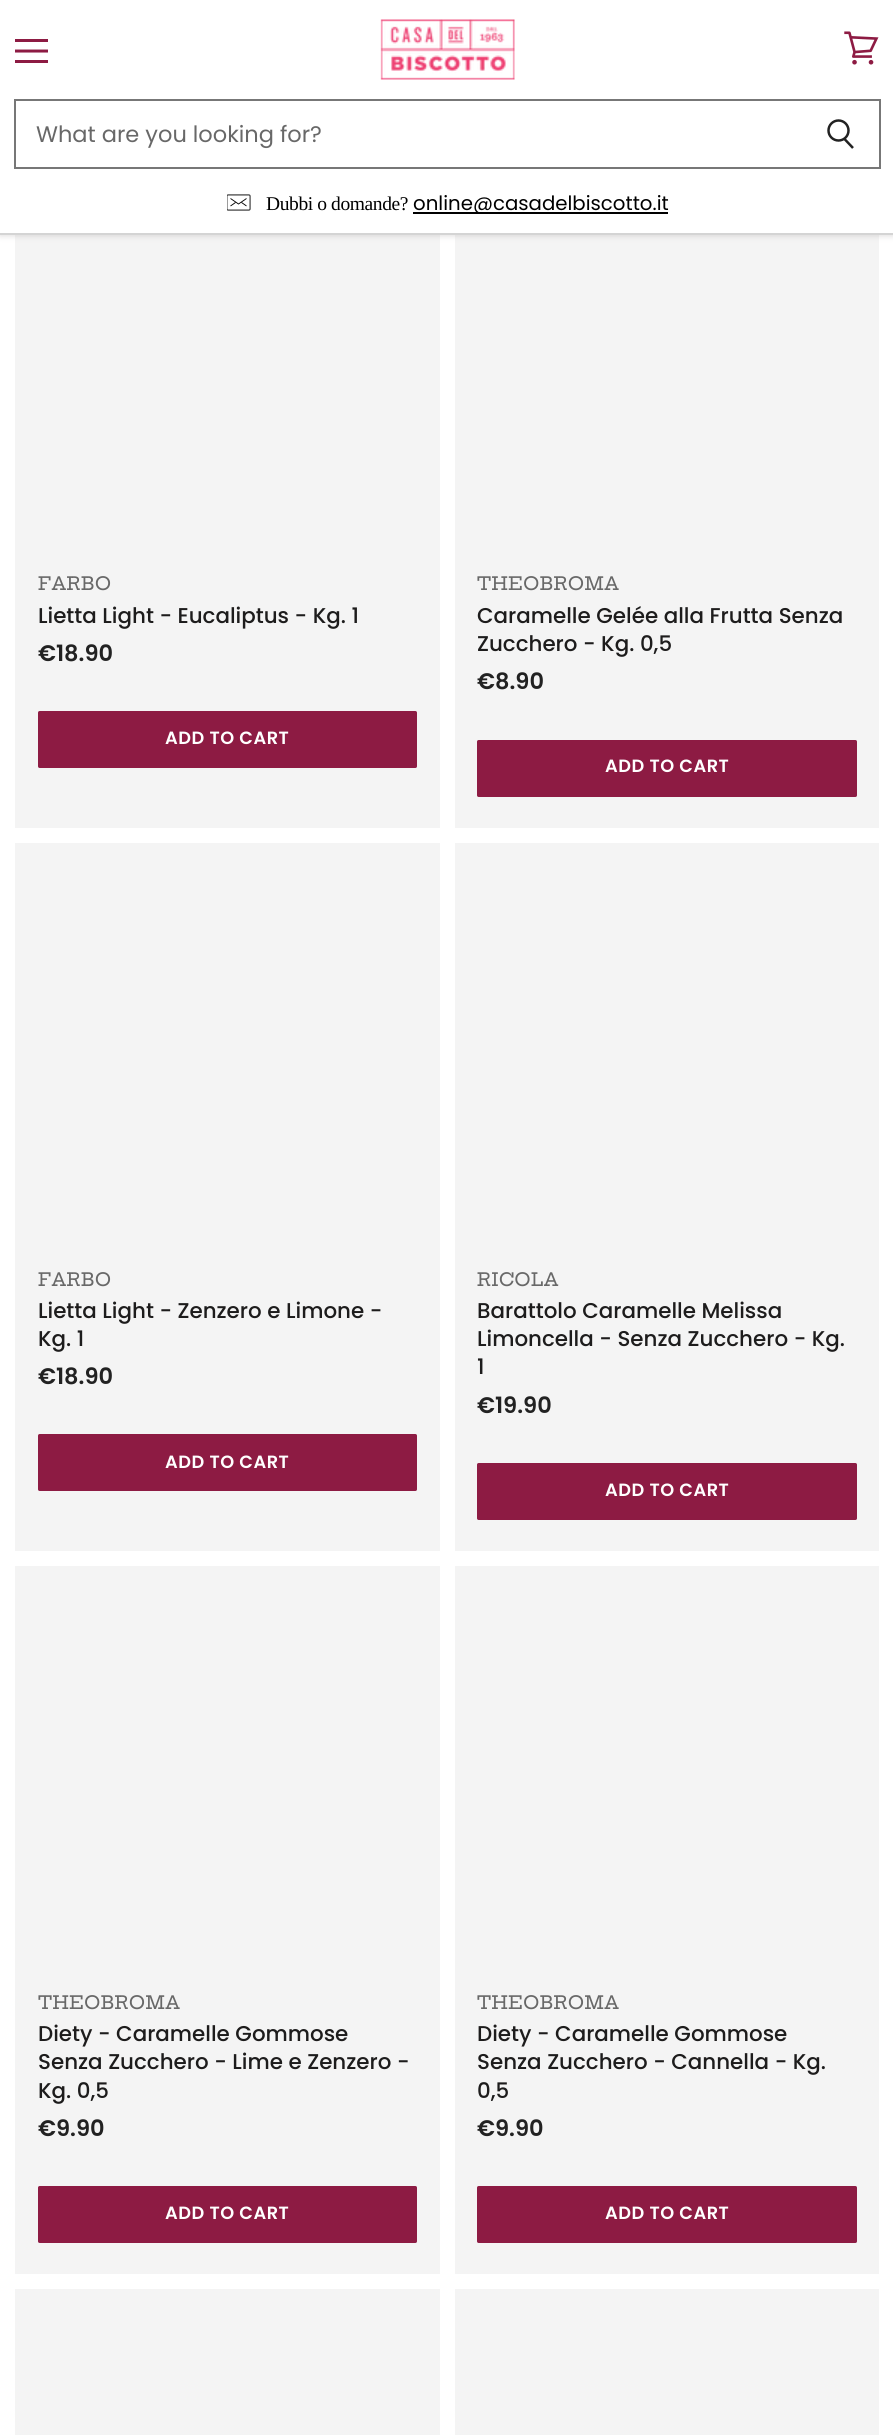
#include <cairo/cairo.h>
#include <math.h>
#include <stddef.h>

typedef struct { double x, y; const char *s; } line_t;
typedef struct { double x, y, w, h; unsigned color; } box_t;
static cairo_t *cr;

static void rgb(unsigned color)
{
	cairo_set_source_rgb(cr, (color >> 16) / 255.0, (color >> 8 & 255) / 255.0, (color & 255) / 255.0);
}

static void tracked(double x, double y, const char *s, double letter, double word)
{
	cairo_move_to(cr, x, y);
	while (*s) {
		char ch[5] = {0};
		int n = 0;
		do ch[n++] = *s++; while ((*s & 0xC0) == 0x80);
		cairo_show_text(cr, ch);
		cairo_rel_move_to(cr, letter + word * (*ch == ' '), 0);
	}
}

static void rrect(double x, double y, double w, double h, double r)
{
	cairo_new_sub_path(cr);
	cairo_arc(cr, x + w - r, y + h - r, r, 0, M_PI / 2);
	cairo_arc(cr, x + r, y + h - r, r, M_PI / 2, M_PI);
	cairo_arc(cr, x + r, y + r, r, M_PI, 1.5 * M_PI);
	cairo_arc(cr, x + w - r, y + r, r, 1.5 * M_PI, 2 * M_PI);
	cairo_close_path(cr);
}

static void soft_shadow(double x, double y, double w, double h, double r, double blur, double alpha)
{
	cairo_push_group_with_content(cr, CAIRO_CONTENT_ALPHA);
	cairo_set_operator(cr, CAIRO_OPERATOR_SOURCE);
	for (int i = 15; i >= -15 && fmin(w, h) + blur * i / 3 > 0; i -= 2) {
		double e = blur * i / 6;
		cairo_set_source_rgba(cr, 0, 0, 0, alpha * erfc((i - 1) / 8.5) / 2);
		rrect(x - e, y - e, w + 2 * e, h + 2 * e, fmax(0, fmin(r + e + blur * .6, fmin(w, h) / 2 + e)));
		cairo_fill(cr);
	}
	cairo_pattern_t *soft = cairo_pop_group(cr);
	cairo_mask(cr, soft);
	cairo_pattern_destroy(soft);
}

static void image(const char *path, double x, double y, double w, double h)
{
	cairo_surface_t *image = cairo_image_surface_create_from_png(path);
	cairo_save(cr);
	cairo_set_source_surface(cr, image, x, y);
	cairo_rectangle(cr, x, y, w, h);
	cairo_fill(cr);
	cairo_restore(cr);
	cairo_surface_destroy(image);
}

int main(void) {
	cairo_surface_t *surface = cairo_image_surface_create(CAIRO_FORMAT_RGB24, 893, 2435);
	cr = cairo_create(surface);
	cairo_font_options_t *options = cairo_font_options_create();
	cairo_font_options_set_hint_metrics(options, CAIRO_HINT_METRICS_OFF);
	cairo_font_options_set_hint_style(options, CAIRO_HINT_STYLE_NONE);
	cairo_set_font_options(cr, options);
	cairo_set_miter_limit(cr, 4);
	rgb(0xffffff);
	cairo_paint(cr);
	rgb(0xf4f4f4);
	cairo_rectangle(cr, 15, 235, 425, 593);
	cairo_fill(cr);
	cairo_rectangle(cr, 455, 235, 424, 593);
	cairo_fill(cr);
	rgb(0x837777);
	soft_shadow(0, 2, 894, 234, 0, 3, 0.25);
	{
		static const box_t items[] = {
			{0, 0, 893, 233, 0xffffff},
			{0, 233, 893, 2, 0xd4d4d4},
			{15, 39, 33, 3, 0x8d1b43},
		};
		for (size_t i = 0; i < sizeof items / sizeof *items; i++) {
			rgb(items[i].color);
			cairo_rectangle(cr, items[i].x, items[i].y, items[i].w, items[i].h);
			cairo_fill(cr);
		}
	}
	cairo_new_path(cr);
	cairo_move_to(cr, 46.5, 51);
	cairo_line_to(cr, 16.5, 51);
	cairo_set_line_width(cr, 3);
	cairo_set_line_cap(cr, CAIRO_LINE_CAP_SQUARE);
	cairo_set_line_join(cr, CAIRO_LINE_JOIN_ROUND);
	cairo_stroke(cr);
	cairo_rectangle(cr, 15, 60, 33, 3);
	cairo_fill(cr);
	image("img/1.png", 844, 31, 35, 34);
	image("img/2.png", 380, 19, 135, 61);
	{
		static const box_t items[] = {
			{14, 99, 867, 2, 0x777777},
			{879, 99, 2, 69, 0x777777},
			{14, 167, 867, 2, 0x777777},
		};
		for (size_t i = 0; i < sizeof items / sizeof *items; i++) {
			rgb(items[i].color);
			cairo_rectangle(cr, items[i].x, items[i].y, items[i].w, items[i].h);
			cairo_fill(cr);
		}
	}
	cairo_new_path(cr);
	cairo_move_to(cr, 853, 148);
	cairo_line_to(cr, 844.5, 139);
	rgb(0x222222);
	cairo_set_line_width(cr, 2.5);
	cairo_set_line_cap(cr, CAIRO_LINE_CAP_BUTT);
	cairo_set_line_join(cr, CAIRO_LINE_JOIN_MITER);
	cairo_stroke(cr);
	cairo_arc(cr, 838.5, 130.5, 10, 0, 2 * M_PI);
	cairo_stroke(cr);
	rgb(0x777777);
	cairo_rectangle(cr, 14, 99, 2, 69);
	cairo_fill(cr);
	image("img/3.png", 227, 194, 24, 17);
	rgb(0x000000);
	cairo_rectangle(cr, 413, 212, 255, 2);
	cairo_fill(cr);
	rgb(0x8d1b43);
	rrect(39, 712, 377, 55, 0.5);
	cairo_fill_preserve(cr);
	cairo_set_line_width(cr, 2);
	cairo_stroke(cr);
	rrect(478, 741, 378, 55, 0.5);
	cairo_fill_preserve(cr);
	cairo_stroke(cr);
	rgb(0xf4f4f4);
	cairo_rectangle(cr, 15, 843, 425, 708);
	cairo_fill(cr);
	rgb(0x8d1b43);
	rrect(39, 1435, 377, 55, 0.5);
	cairo_fill_preserve(cr);
	cairo_stroke(cr);
	rgb(0xf4f4f4);
	cairo_rectangle(cr, 455, 843, 424, 708);
	cairo_fill(cr);
	rgb(0x8d1b43);
	rrect(478, 1464, 378, 55, 0.5);
	cairo_fill_preserve(cr);
	cairo_stroke(cr);
	rgb(0xf4f4f4);
	cairo_rectangle(cr, 15, 1566, 425, 708);
	cairo_fill(cr);
	rgb(0x8d1b43);
	rrect(39, 2187, 377, 55, 0.5);
	cairo_fill_preserve(cr);
	cairo_stroke(cr);
	rgb(0xf4f4f4);
	cairo_rectangle(cr, 455, 1566, 424, 708);
	cairo_fill(cr);
	rgb(0x8d1b43);
	rrect(478, 2187, 378, 55, 0.5);
	cairo_fill_preserve(cr);
	cairo_stroke(cr);
	rgb(0xf4f4f4);
	cairo_rectangle(cr, 15, 2289, 425, 146);
	cairo_fill(cr);
	cairo_rectangle(cr, 455, 2289, 424, 146);
	cairo_fill(cr);
	cairo_select_font_face(cr, "Poppins", CAIRO_FONT_SLANT_NORMAL, CAIRO_FONT_WEIGHT_NORMAL);
	cairo_set_font_size(cr, 22.5);
	rgb(0x686868);
	cairo_move_to(cr, 36, 142);
	cairo_show_text(cr, "What are you looking for?");
	cairo_select_font_face(cr, "Liberation Serif", CAIRO_FONT_SLANT_NORMAL, CAIRO_FONT_WEIGHT_NORMAL);
	cairo_set_font_size(cr, 19.5);
	rgb(0x000000);
	tracked(266, 210, "Dubbi o domande?", -0.4, 0);
	cairo_select_font_face(cr, "Poppins", CAIRO_FONT_SLANT_NORMAL, CAIRO_FONT_WEIGHT_NORMAL);
	cairo_set_font_size(cr, 19.75);
	cairo_move_to(cr, 413, 210);
	cairo_show_text(cr, "online@casadelbiscotto.it");
	cairo_select_font_face(cr, "Hepta Slab Medium", CAIRO_FONT_SLANT_NORMAL, CAIRO_FONT_WEIGHT_NORMAL);
	cairo_set_font_size(cr, 18.25);
	rgb(0x686868);
	tracked(38, 590, "FARBO", 0.5, 0);
	cairo_select_font_face(cr, "Poppins Medium", CAIRO_FONT_SLANT_NORMAL, CAIRO_FONT_WEIGHT_NORMAL);
	cairo_set_font_size(cr, 21.4);
	rgb(0x1d1c1c);
	cairo_move_to(cr, 38, 623);
	cairo_show_text(cr, "Lietta Light - Eucaliptus - Kg. 1");
	cairo_select_font_face(cr, "Poppins SemiBold", CAIRO_FONT_SLANT_NORMAL, CAIRO_FONT_WEIGHT_NORMAL);
	cairo_set_font_size(cr, 22.5);
	rgb(0x222222);
	cairo_move_to(cr, 38, 661);
	cairo_show_text(cr, "€18.90");
	cairo_set_font_size(cr, 17.75);
	rgb(0xffffff);
	tracked(165, 744, "ADD TO CART", 0.5, 0);
	cairo_select_font_face(cr, "Hepta Slab Medium", CAIRO_FONT_SLANT_NORMAL, CAIRO_FONT_WEIGHT_NORMAL);
	cairo_set_font_size(cr, 18.25);
	rgb(0x686868);
	tracked(477, 590, "THEOBROMA", 0.5, 0);
	cairo_select_font_face(cr, "Poppins Medium", CAIRO_FONT_SLANT_NORMAL, CAIRO_FONT_WEIGHT_NORMAL);
	cairo_set_font_size(cr, 21.4);
	rgb(0x1d1c1c);
	cairo_move_to(cr, 477, 623);
	cairo_show_text(cr, "Caramelle Gelée alla Frutta Senza");
	cairo_move_to(cr, 477, 651);
	cairo_show_text(cr, "Zucchero - Kg. 0,5");
	cairo_select_font_face(cr, "Poppins SemiBold", CAIRO_FONT_SLANT_NORMAL, CAIRO_FONT_WEIGHT_NORMAL);
	cairo_set_font_size(cr, 22.5);
	rgb(0x222222);
	cairo_move_to(cr, 477, 689);
	cairo_show_text(cr, "€8.90");
	cairo_set_font_size(cr, 17.75);
	rgb(0xffffff);
	tracked(605, 772, "ADD TO CART", 0.5, 0);
	cairo_select_font_face(cr, "Hepta Slab Medium", CAIRO_FONT_SLANT_NORMAL, CAIRO_FONT_WEIGHT_NORMAL);
	cairo_set_font_size(cr, 18.25);
	rgb(0x686868);
	tracked(38, 1286, "FARBO", 0.5, 0);
	cairo_select_font_face(cr, "Poppins Medium", CAIRO_FONT_SLANT_NORMAL, CAIRO_FONT_WEIGHT_NORMAL);
	cairo_set_font_size(cr, 21.4);
	rgb(0x1d1c1c);
	cairo_move_to(cr, 38, 1318);
	cairo_show_text(cr, "Lietta Light - Zenzero e Limone -");
	cairo_move_to(cr, 38, 1346);
	cairo_show_text(cr, "Kg. 1");
	cairo_select_font_face(cr, "Poppins SemiBold", CAIRO_FONT_SLANT_NORMAL, CAIRO_FONT_WEIGHT_NORMAL);
	cairo_set_font_size(cr, 22.5);
	rgb(0x222222);
	cairo_move_to(cr, 38, 1384);
	cairo_show_text(cr, "€18.90");
	cairo_set_font_size(cr, 17.75);
	rgb(0xffffff);
	tracked(165, 1468, "ADD TO CART", 0.5, 0);
	cairo_select_font_face(cr, "Hepta Slab Medium", CAIRO_FONT_SLANT_NORMAL, CAIRO_FONT_WEIGHT_NORMAL);
	cairo_set_font_size(cr, 18.25);
	rgb(0x686868);
	tracked(477, 1286, "RICOLA", 0.5, 0);
	cairo_select_font_face(cr, "Poppins Medium", CAIRO_FONT_SLANT_NORMAL, CAIRO_FONT_WEIGHT_NORMAL);
	cairo_set_font_size(cr, 21.4);
	rgb(0x1d1c1c);
	{
		static const line_t items[] = {
			{477, 1318, "Barattolo Caramelle Melissa"},
			{477, 1346, "Limoncella - Senza Zucchero - Kg."},
			{477, 1374, "1"},
		};
		for (size_t i = 0; i < sizeof items / sizeof *items; i++) {
			cairo_move_to(cr, items[i].x, items[i].y);
			cairo_show_text(cr, items[i].s);
		}
	}
	cairo_select_font_face(cr, "Poppins SemiBold", CAIRO_FONT_SLANT_NORMAL, CAIRO_FONT_WEIGHT_NORMAL);
	cairo_set_font_size(cr, 22.5);
	rgb(0x222222);
	cairo_move_to(cr, 477, 1413);
	cairo_show_text(cr, "€19.90");
	cairo_set_font_size(cr, 17.75);
	rgb(0xffffff);
	tracked(605, 1496, "ADD TO CART", 0.5, 0);
	cairo_select_font_face(cr, "Hepta Slab Medium", CAIRO_FONT_SLANT_NORMAL, CAIRO_FONT_WEIGHT_NORMAL);
	cairo_set_font_size(cr, 18.25);
	rgb(0x686868);
	tracked(38, 2009, "THEOBROMA", 0.5, 0);
	cairo_select_font_face(cr, "Poppins Medium", CAIRO_FONT_SLANT_NORMAL, CAIRO_FONT_WEIGHT_NORMAL);
	cairo_set_font_size(cr, 21.4);
	rgb(0x1d1c1c);
	{
		static const line_t items[] = {
			{38, 2041, "Diety - Caramelle Gommose"},
			{38, 2069, "Senza Zucchero - Lime e Zenzero -"},
			{38, 2098, "Kg. 0,5"},
		};
		for (size_t i = 0; i < sizeof items / sizeof *items; i++) {
			cairo_move_to(cr, items[i].x, items[i].y);
			cairo_show_text(cr, items[i].s);
		}
	}
	cairo_select_font_face(cr, "Poppins SemiBold", CAIRO_FONT_SLANT_NORMAL, CAIRO_FONT_WEIGHT_NORMAL);
	cairo_set_font_size(cr, 22.5);
	rgb(0x222222);
	cairo_move_to(cr, 38, 2136);
	cairo_show_text(cr, "€9.90");
	cairo_set_font_size(cr, 17.75);
	rgb(0xffffff);
	tracked(165, 2219, "ADD TO CART", 0.5, 0);
	cairo_select_font_face(cr, "Hepta Slab Medium", CAIRO_FONT_SLANT_NORMAL, CAIRO_FONT_WEIGHT_NORMAL);
	cairo_set_font_size(cr, 18.25);
	rgb(0x686868);
	tracked(477, 2009, "THEOBROMA", 0.5, 0);
	cairo_select_font_face(cr, "Poppins Medium", CAIRO_FONT_SLANT_NORMAL, CAIRO_FONT_WEIGHT_NORMAL);
	cairo_set_font_size(cr, 21.4);
	rgb(0x1d1c1c);
	{
		static const line_t items[] = {
			{477, 2041, "Diety - Caramelle Gommose"},
			{477, 2069, "Senza Zucchero - Cannella - Kg."},
			{477, 2098, "0,5"},
		};
		for (size_t i = 0; i < sizeof items / sizeof *items; i++) {
			cairo_move_to(cr, items[i].x, items[i].y);
			cairo_show_text(cr, items[i].s);
		}
	}
	cairo_select_font_face(cr, "Poppins SemiBold", CAIRO_FONT_SLANT_NORMAL, CAIRO_FONT_WEIGHT_NORMAL);
	cairo_set_font_size(cr, 22.5);
	rgb(0x222222);
	cairo_move_to(cr, 477, 2136);
	cairo_show_text(cr, "€9.90");
	cairo_set_font_size(cr, 17.75);
	rgb(0xffffff);
	tracked(605, 2219, "ADD TO CART", 0.5, 0);
	cairo_surface_write_to_png(surface, "page.png");
	cairo_font_options_destroy(options);
	cairo_destroy(cr);
	cairo_surface_destroy(surface);
	return 0;
}
